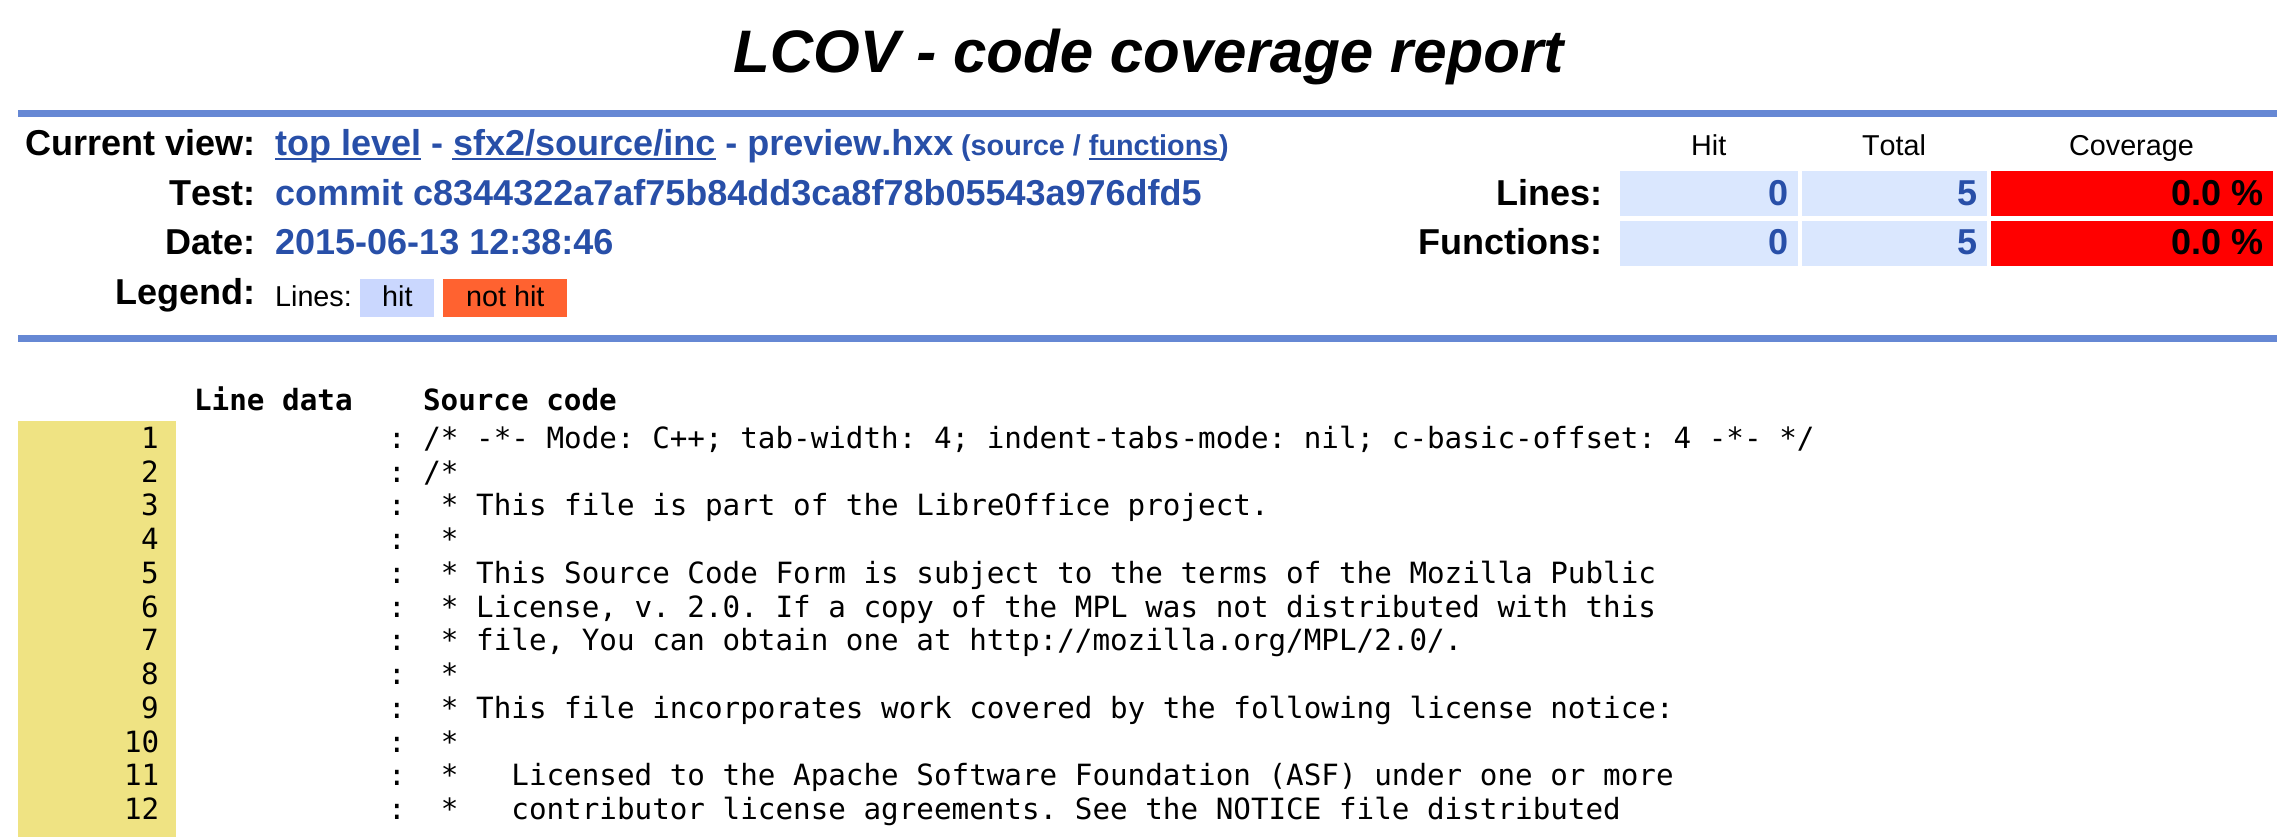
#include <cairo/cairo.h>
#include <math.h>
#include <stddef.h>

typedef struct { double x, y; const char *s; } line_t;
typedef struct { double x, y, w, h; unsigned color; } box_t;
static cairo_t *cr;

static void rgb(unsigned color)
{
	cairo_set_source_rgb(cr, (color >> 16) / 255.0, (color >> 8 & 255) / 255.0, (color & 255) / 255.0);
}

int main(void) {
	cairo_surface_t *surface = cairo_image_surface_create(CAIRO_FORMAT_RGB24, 2294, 837);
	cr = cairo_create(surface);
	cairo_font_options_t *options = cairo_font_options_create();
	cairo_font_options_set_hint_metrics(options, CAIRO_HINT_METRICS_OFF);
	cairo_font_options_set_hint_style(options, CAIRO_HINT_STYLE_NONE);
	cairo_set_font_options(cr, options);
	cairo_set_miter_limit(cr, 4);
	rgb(0xffffff);
	cairo_paint(cr);
	{
		static const box_t items[] = {
			{18, 110, 2259, 7, 0x6688d4},
			{275, 158, 146, 2, 0x284fa8},
			{1089, 158, 131, 2, 0x284fa8},
			{452, 158, 264, 2, 0x284fa8},
			{1620, 171, 178, 45, 0xdae7fe},
			{1802, 171, 185, 45, 0xdae7fe},
			{1991, 171, 282, 45, 0xff0000},
			{1620, 221, 178, 45, 0xdae7fe},
			{1802, 221, 185, 45, 0xdae7fe},
			{1991, 221, 282, 45, 0xff0000},
			{360, 279, 74, 38, 0xcad7fe},
			{443, 279, 124, 38, 0xff6230},
			{18, 335, 2259, 7, 0x6688d4},
			{18, 421, 158, 416, 0xefe383},
		};
		for (size_t i = 0; i < sizeof items / sizeof *items; i++) {
			rgb(items[i].color);
			cairo_rectangle(cr, items[i].x, items[i].y, items[i].w, items[i].h);
			cairo_fill(cr);
		}
	}
	cairo_select_font_face(cr, "Liberation Sans", CAIRO_FONT_SLANT_ITALIC, CAIRO_FONT_WEIGHT_BOLD);
	cairo_set_font_size(cr, 60);
	rgb(0x000000);
	cairo_move_to(cr, 733, 72);
	cairo_show_text(cr, "LCOV - code coverage report");
	cairo_select_font_face(cr, "Liberation Sans", CAIRO_FONT_SLANT_NORMAL, CAIRO_FONT_WEIGHT_BOLD);
	cairo_set_font_size(cr, 36);
	cairo_move_to(cr, 25, 155);
	cairo_show_text(cr, "Current view:");
	rgb(0x284fa8);
	cairo_move_to(cr, 275, 155);
	cairo_show_text(cr, "top level - sfx2/source/inc - preview.hxx");
	cairo_set_font_size(cr, 28.75);
	cairo_move_to(cr, 961, 155);
	cairo_show_text(cr, "(source / functions");
	cairo_move_to(cr, 1219, 155);
	cairo_show_text(cr, ")");
	cairo_select_font_face(cr, "Liberation Sans", CAIRO_FONT_SLANT_NORMAL, CAIRO_FONT_WEIGHT_NORMAL);
	rgb(0x000000);
	{
		static const line_t items[] = {
			{1691, 155, "Hit"},
			{1862, 155, "Total"},
			{2069, 155, "Coverage"},
		};
		for (size_t i = 0; i < sizeof items / sizeof *items; i++) {
			cairo_move_to(cr, items[i].x, items[i].y);
			cairo_show_text(cr, items[i].s);
		}
	}
	cairo_select_font_face(cr, "Liberation Sans", CAIRO_FONT_SLANT_NORMAL, CAIRO_FONT_WEIGHT_BOLD);
	cairo_set_font_size(cr, 36);
	cairo_move_to(cr, 169, 205);
	cairo_show_text(cr, "Test:");
	rgb(0x284fa8);
	cairo_move_to(cr, 275, 205);
	cairo_show_text(cr, "commit c8344322a7af75b84dd3ca8f78b05543a976dfd5");
	rgb(0x000000);
	cairo_move_to(cr, 1496, 205);
	cairo_show_text(cr, "Lines:");
	rgb(0x284fa8);
	cairo_move_to(cr, 1768, 205);
	cairo_show_text(cr, "0");
	cairo_move_to(cr, 1957, 205);
	cairo_show_text(cr, "5");
	rgb(0x000000);
	cairo_move_to(cr, 2171, 205);
	cairo_show_text(cr, "0.0 %");
	cairo_move_to(cr, 165, 254);
	cairo_show_text(cr, "Date:");
	rgb(0x284fa8);
	cairo_move_to(cr, 275, 254);
	cairo_show_text(cr, "2015-06-13 12:38:46");
	rgb(0x000000);
	cairo_move_to(cr, 1418, 254);
	cairo_show_text(cr, "Functions:");
	rgb(0x284fa8);
	cairo_move_to(cr, 1768, 254);
	cairo_show_text(cr, "0");
	cairo_move_to(cr, 1957, 254);
	cairo_show_text(cr, "5");
	rgb(0x000000);
	cairo_move_to(cr, 2171, 254);
	cairo_show_text(cr, "0.0 %");
	cairo_move_to(cr, 115, 304);
	cairo_show_text(cr, "Legend:");
	cairo_select_font_face(cr, "Liberation Sans", CAIRO_FONT_SLANT_NORMAL, CAIRO_FONT_WEIGHT_NORMAL);
	cairo_set_font_size(cr, 28.75);
	{
		static const line_t items[] = {
			{275, 306, "Lines:"},
			{382, 306, "hit"},
			{466, 306, "not hit"},
		};
		for (size_t i = 0; i < sizeof items / sizeof *items; i++) {
			cairo_move_to(cr, items[i].x, items[i].y);
			cairo_show_text(cr, items[i].s);
		}
	}
	cairo_select_font_face(cr, "DejaVu Sans Mono", CAIRO_FONT_SLANT_NORMAL, CAIRO_FONT_WEIGHT_BOLD);
	cairo_set_font_size(cr, 29.25);
	cairo_move_to(cr, 194, 410);
	cairo_show_text(cr, "Line data    Source code");
	cairo_select_font_face(cr, "DejaVu Sans Mono", CAIRO_FONT_SLANT_NORMAL, CAIRO_FONT_WEIGHT_NORMAL);
	{
		static const line_t items[] = {
			{141, 448, "1"},
			{388, 448, ": /* -*- Mode: C++; tab-width: 4; indent-tabs-mode: nil; c-basic-offset: 4 -*- */"},
			{141, 482, "2"},
			{388, 482, ": /*"},
			{141, 515, "3"},
			{388, 515, ":  * This file is part of the LibreOffice project."},
			{141, 549, "4"},
			{388, 549, ":  *"},
			{141, 583, "5"},
			{388, 583, ":  * This Source Code Form is subject to the terms of the Mozilla Public"},
			{141, 617, "6"},
			{388, 617, ":  * License, v. 2.0. If a copy of the MPL was not distributed with this"},
			{141, 650, "7"},
			{388, 650, ":  * file, You can obtain one at http://mozilla.org/MPL/2.0/."},
			{141, 684, "8"},
			{388, 684, ":  *"},
			{141, 718, "9"},
			{388, 718, ":  * This file incorporates work covered by the following license notice:"},
			{124, 752, "10"},
			{388, 752, ":  *"},
			{124, 785, "11"},
			{388, 785, ":  *   Licensed to the Apache Software Foundation (ASF) under one or more"},
			{124, 819, "12"},
			{388, 819, ":  *   contributor license agreements. See the NOTICE file distributed"},
		};
		for (size_t i = 0; i < sizeof items / sizeof *items; i++) {
			cairo_move_to(cr, items[i].x, items[i].y);
			cairo_show_text(cr, items[i].s);
		}
	}
	cairo_surface_write_to_png(surface, "page.png");
	cairo_font_options_destroy(options);
	cairo_destroy(cr);
	cairo_surface_destroy(surface);
	return 0;
}
